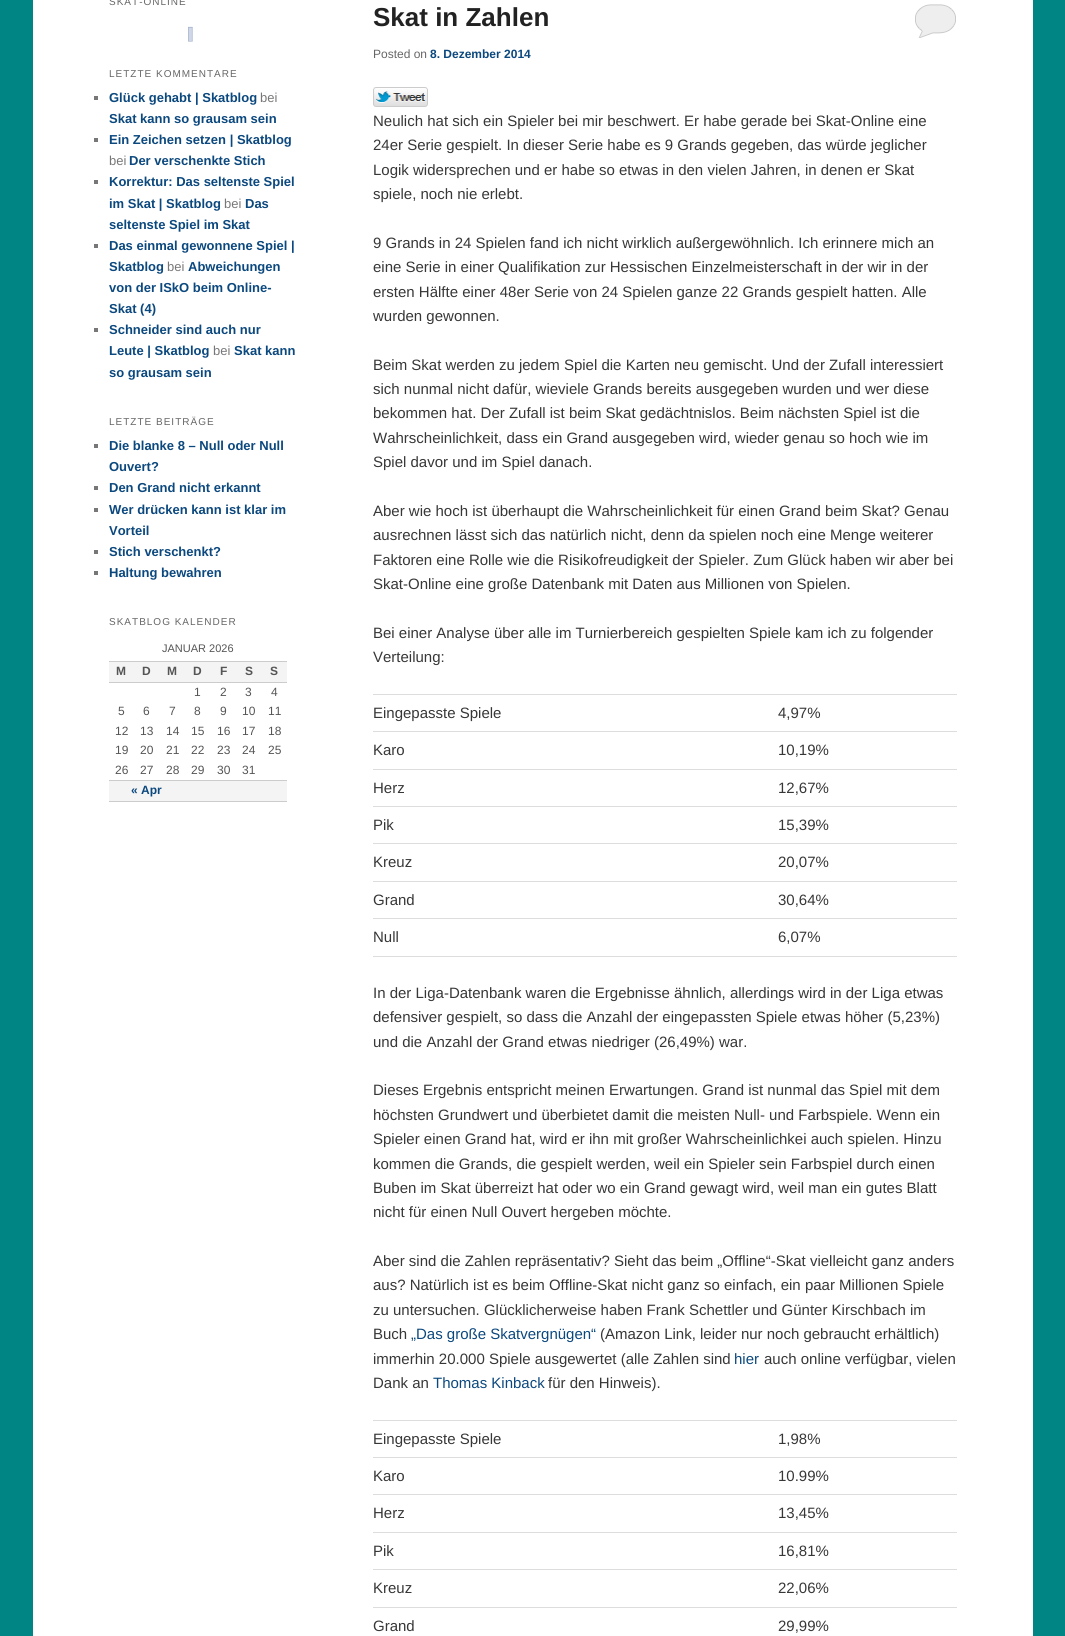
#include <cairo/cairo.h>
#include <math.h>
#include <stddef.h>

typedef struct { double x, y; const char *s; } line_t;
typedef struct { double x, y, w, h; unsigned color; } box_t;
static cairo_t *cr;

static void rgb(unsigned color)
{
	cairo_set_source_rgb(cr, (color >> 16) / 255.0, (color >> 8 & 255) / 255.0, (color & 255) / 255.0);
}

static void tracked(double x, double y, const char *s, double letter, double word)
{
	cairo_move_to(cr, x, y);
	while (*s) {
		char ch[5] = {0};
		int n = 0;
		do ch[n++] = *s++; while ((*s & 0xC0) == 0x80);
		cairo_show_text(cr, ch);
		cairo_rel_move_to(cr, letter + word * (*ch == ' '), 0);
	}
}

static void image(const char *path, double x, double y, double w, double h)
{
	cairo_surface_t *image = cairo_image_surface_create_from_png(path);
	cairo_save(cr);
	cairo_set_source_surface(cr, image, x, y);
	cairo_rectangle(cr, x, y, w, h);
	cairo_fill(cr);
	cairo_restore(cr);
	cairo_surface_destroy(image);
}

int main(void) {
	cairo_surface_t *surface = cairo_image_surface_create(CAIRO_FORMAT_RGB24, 1065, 1636);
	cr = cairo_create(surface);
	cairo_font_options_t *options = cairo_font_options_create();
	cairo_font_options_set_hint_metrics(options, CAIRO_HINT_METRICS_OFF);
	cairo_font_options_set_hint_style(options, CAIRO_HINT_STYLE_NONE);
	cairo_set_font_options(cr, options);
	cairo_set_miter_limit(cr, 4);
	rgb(0x018484);
	cairo_paint(cr);
	rgb(0xffffff);
	cairo_rectangle(cr, 33, 0, 1000, 1636);
	cairo_fill(cr);
	image("img/1.png", 188, 26, 5, 16);
	{
		static const box_t items[] = {
			{94, 96, 4, 4, 0x777777},
			{94, 138, 4, 4, 0x777777},
			{94, 180, 4, 4, 0x777777},
			{94, 244, 4, 4, 0x777777},
			{94, 328, 4, 4, 0x777777},
			{94, 444, 4, 4, 0x777777},
			{94, 486, 4, 4, 0x777777},
			{94, 508, 4, 4, 0x777777},
			{94, 550, 4, 4, 0x777777},
			{94, 571, 4, 4, 0x777777},
			{109, 662, 178, 20, 0xf4f4f4},
			{109, 661, 178, 1, 0xcccccc},
			{109, 682, 178, 1, 0xcccccc},
			{109, 781, 178, 20, 0xf4f4f4},
			{109, 780, 178, 1, 0xcccccc},
			{109, 801, 178, 1, 0xcccccc},
			{915, 4, 41, 34, 0xeeeeee},
		};
		for (size_t i = 0; i < sizeof items / sizeof *items; i++) {
			rgb(items[i].color);
			cairo_rectangle(cr, items[i].x, items[i].y, items[i].w, items[i].h);
			cairo_fill(cr);
		}
	}
	image("img/2.png", 914, 2, 43, 36);
	image("img/3.png", 373, 87, 55, 20);
	{
		static const box_t items[] = {
			{373, 956, 584, 1, 0xdddddd},
			{373, 694, 584, 1, 0xdddddd},
			{373, 731, 584, 1, 0xdddddd},
			{373, 769, 584, 1, 0xdddddd},
			{373, 806, 584, 1, 0xdddddd},
			{373, 843, 584, 1, 0xdddddd},
			{373, 881, 584, 1, 0xdddddd},
			{373, 918, 584, 1, 0xdddddd},
			{373, 1420, 584, 1, 0xdddddd},
			{373, 1457, 584, 1, 0xdddddd},
			{373, 1494, 584, 1, 0xdddddd},
			{373, 1532, 584, 1, 0xdddddd},
			{373, 1569, 584, 1, 0xdddddd},
			{373, 1607, 584, 1, 0xdddddd},
		};
		for (size_t i = 0; i < sizeof items / sizeof *items; i++) {
			rgb(items[i].color);
			cairo_rectangle(cr, items[i].x, items[i].y, items[i].w, items[i].h);
			cairo_fill(cr);
		}
	}
	cairo_select_font_face(cr, "Liberation Sans", CAIRO_FONT_SLANT_NORMAL, CAIRO_FONT_WEIGHT_NORMAL);
	cairo_set_font_size(cr, 10);
	rgb(0x666666);
	tracked(109, 5, "SKAT-ONLINE", 1, 0);
	tracked(109, 77, "LETZTE KOMMENTARE", 1, 0);
	cairo_select_font_face(cr, "Liberation Sans", CAIRO_FONT_SLANT_NORMAL, CAIRO_FONT_WEIGHT_BOLD);
	cairo_set_font_size(cr, 13);
	rgb(0x0b487e);
	cairo_move_to(cr, 109, 102);
	cairo_show_text(cr, "Glück gehabt | Skatblog");
	cairo_select_font_face(cr, "Liberation Sans", CAIRO_FONT_SLANT_NORMAL, CAIRO_FONT_WEIGHT_NORMAL);
	rgb(0x777777);
	cairo_move_to(cr, 260, 102);
	cairo_show_text(cr, "bei");
	cairo_select_font_face(cr, "Liberation Sans", CAIRO_FONT_SLANT_NORMAL, CAIRO_FONT_WEIGHT_BOLD);
	rgb(0x0b487e);
	cairo_move_to(cr, 109, 123);
	cairo_show_text(cr, "Skat kann so grausam sein");
	cairo_move_to(cr, 109, 144);
	cairo_show_text(cr, "Ein Zeichen setzen | Skatblog");
	cairo_select_font_face(cr, "Liberation Sans", CAIRO_FONT_SLANT_NORMAL, CAIRO_FONT_WEIGHT_NORMAL);
	rgb(0x777777);
	cairo_move_to(cr, 109, 165);
	cairo_show_text(cr, "bei");
	cairo_select_font_face(cr, "Liberation Sans", CAIRO_FONT_SLANT_NORMAL, CAIRO_FONT_WEIGHT_BOLD);
	rgb(0x0b487e);
	{
		static const line_t items[] = {
			{129, 165, "Der verschenkte Stich"},
			{109, 186, "Korrektur: Das seltenste Spiel"},
			{109, 208, "im Skat | Skatblog"},
		};
		for (size_t i = 0; i < sizeof items / sizeof *items; i++) {
			cairo_move_to(cr, items[i].x, items[i].y);
			cairo_show_text(cr, items[i].s);
		}
	}
	cairo_select_font_face(cr, "Liberation Sans", CAIRO_FONT_SLANT_NORMAL, CAIRO_FONT_WEIGHT_NORMAL);
	rgb(0x777777);
	cairo_move_to(cr, 224, 208);
	cairo_show_text(cr, "bei");
	cairo_select_font_face(cr, "Liberation Sans", CAIRO_FONT_SLANT_NORMAL, CAIRO_FONT_WEIGHT_BOLD);
	rgb(0x0b487e);
	{
		static const line_t items[] = {
			{245, 208, "Das"},
			{109, 229, "seltenste Spiel im Skat"},
			{109, 250, "Das einmal gewonnene Spiel |"},
			{109, 271, "Skatblog"},
		};
		for (size_t i = 0; i < sizeof items / sizeof *items; i++) {
			cairo_move_to(cr, items[i].x, items[i].y);
			cairo_show_text(cr, items[i].s);
		}
	}
	cairo_select_font_face(cr, "Liberation Sans", CAIRO_FONT_SLANT_NORMAL, CAIRO_FONT_WEIGHT_NORMAL);
	rgb(0x777777);
	cairo_move_to(cr, 167, 271);
	cairo_show_text(cr, "bei");
	cairo_select_font_face(cr, "Liberation Sans", CAIRO_FONT_SLANT_NORMAL, CAIRO_FONT_WEIGHT_BOLD);
	rgb(0x0b487e);
	{
		static const line_t items[] = {
			{188, 271, "Abweichungen"},
			{109, 292, "von der ISkO beim Online-"},
			{109, 313, "Skat (4)"},
			{109, 334, "Schneider sind auch nur"},
			{109, 355, "Leute | Skatblog"},
		};
		for (size_t i = 0; i < sizeof items / sizeof *items; i++) {
			cairo_move_to(cr, items[i].x, items[i].y);
			cairo_show_text(cr, items[i].s);
		}
	}
	cairo_select_font_face(cr, "Liberation Sans", CAIRO_FONT_SLANT_NORMAL, CAIRO_FONT_WEIGHT_NORMAL);
	rgb(0x777777);
	cairo_move_to(cr, 213, 355);
	cairo_show_text(cr, "bei");
	cairo_select_font_face(cr, "Liberation Sans", CAIRO_FONT_SLANT_NORMAL, CAIRO_FONT_WEIGHT_BOLD);
	rgb(0x0b487e);
	cairo_move_to(cr, 234, 355);
	cairo_show_text(cr, "Skat kann");
	cairo_move_to(cr, 109, 377);
	cairo_show_text(cr, "so grausam sein");
	cairo_select_font_face(cr, "Liberation Sans", CAIRO_FONT_SLANT_NORMAL, CAIRO_FONT_WEIGHT_NORMAL);
	cairo_set_font_size(cr, 10);
	rgb(0x666666);
	tracked(109, 425, "LETZTE BEITRÄGE", 1, 0);
	cairo_select_font_face(cr, "Liberation Sans", CAIRO_FONT_SLANT_NORMAL, CAIRO_FONT_WEIGHT_BOLD);
	cairo_set_font_size(cr, 13);
	rgb(0x0b487e);
	{
		static const line_t items[] = {
			{109, 450, "Die blanke 8 – Null oder Null"},
			{109, 471, "Ouvert?"},
			{109, 492, "Den Grand nicht erkannt"},
			{109, 514, "Wer drücken kann ist klar im"},
			{109, 535, "Vorteil"},
			{109, 556, "Stich verschenkt?"},
			{109, 577, "Haltung bewahren"},
		};
		for (size_t i = 0; i < sizeof items / sizeof *items; i++) {
			cairo_move_to(cr, items[i].x, items[i].y);
			cairo_show_text(cr, items[i].s);
		}
	}
	cairo_select_font_face(cr, "Liberation Sans", CAIRO_FONT_SLANT_NORMAL, CAIRO_FONT_WEIGHT_NORMAL);
	cairo_set_font_size(cr, 10);
	rgb(0x666666);
	tracked(109, 625, "SKATBLOG KALENDER", 1, 0);
	cairo_set_font_size(cr, 11);
	rgb(0x555555);
	cairo_move_to(cr, 162, 652);
	cairo_show_text(cr, "JANUAR 2026");
	cairo_select_font_face(cr, "Liberation Sans", CAIRO_FONT_SLANT_NORMAL, CAIRO_FONT_WEIGHT_BOLD);
	cairo_set_font_size(cr, 12);
	{
		static const line_t items[] = {
			{116, 675, "M"},
			{142, 675, "D"},
			{167, 675, "M"},
			{193, 675, "D"},
			{220, 675, "F"},
			{245, 675, "S"},
			{270, 675, "S"},
		};
		for (size_t i = 0; i < sizeof items / sizeof *items; i++) {
			cairo_move_to(cr, items[i].x, items[i].y);
			cairo_show_text(cr, items[i].s);
		}
	}
	cairo_select_font_face(cr, "Liberation Sans", CAIRO_FONT_SLANT_NORMAL, CAIRO_FONT_WEIGHT_NORMAL);
	{
		static const line_t items[] = {
			{194, 696, "1"},
			{220, 696, "2"},
			{245, 696, "3"},
			{271, 696, "4"},
			{118, 715, "5"},
			{143, 715, "6"},
			{169, 715, "7"},
			{194, 715, "8"},
			{220, 715, "9"},
			{242, 715, "10"},
			{268, 715, "11"},
			{115, 735, "12"},
			{140, 735, "13"},
			{166, 735, "14"},
			{191, 735, "15"},
			{217, 735, "16"},
			{242, 735, "17"},
			{268, 735, "18"},
			{115, 754, "19"},
			{140, 754, "20"},
			{166, 754, "21"},
			{191, 754, "22"},
			{217, 754, "23"},
			{242, 754, "24"},
			{268, 754, "25"},
			{115, 774, "26"},
			{140, 774, "27"},
			{166, 774, "28"},
			{191, 774, "29"},
			{217, 774, "30"},
			{242, 774, "31"},
		};
		for (size_t i = 0; i < sizeof items / sizeof *items; i++) {
			cairo_move_to(cr, items[i].x, items[i].y);
			cairo_show_text(cr, items[i].s);
		}
	}
	cairo_select_font_face(cr, "Liberation Sans", CAIRO_FONT_SLANT_NORMAL, CAIRO_FONT_WEIGHT_BOLD);
	rgb(0x0b487e);
	cairo_move_to(cr, 131, 794);
	cairo_show_text(cr, "« Apr");
	cairo_set_font_size(cr, 26);
	rgb(0x222222);
	cairo_move_to(cr, 373, 26);
	cairo_show_text(cr, "Skat in Zahlen");
	cairo_select_font_face(cr, "Liberation Sans", CAIRO_FONT_SLANT_NORMAL, CAIRO_FONT_WEIGHT_NORMAL);
	cairo_set_font_size(cr, 12);
	rgb(0x666666);
	cairo_move_to(cr, 373, 58);
	cairo_show_text(cr, "Posted on");
	cairo_select_font_face(cr, "Liberation Sans", CAIRO_FONT_SLANT_NORMAL, CAIRO_FONT_WEIGHT_BOLD);
	rgb(0x0b487e);
	cairo_move_to(cr, 430, 58);
	cairo_show_text(cr, "8. Dezember 2014");
	cairo_select_font_face(cr, "Liberation Sans", CAIRO_FONT_SLANT_NORMAL, CAIRO_FONT_WEIGHT_NORMAL);
	cairo_set_font_size(cr, 15);
	rgb(0x373737);
	{
		static const line_t items[] = {
			{373, 126, "Neulich hat sich ein Spieler bei mir beschwert. Er habe gerade bei Skat-Online eine"},
			{373, 150, "24er Serie gespielt. In dieser Serie habe es 9 Grands gegeben, das würde jeglicher"},
			{373, 175, "Logik widersprechen und er habe so etwas in den vielen Jahren, in denen er Skat"},
			{373, 199, "spiele, noch nie erlebt."},
			{373, 248, "9 Grands in 24 Spielen fand ich nicht wirklich außergewöhnlich. Ich erinnere mich an"},
			{373, 272, "eine Serie in einer Qualifikation zur Hessischen Einzelmeisterschaft in der wir in der"},
			{373, 297, "ersten Hälfte einer 48er Serie von 24 Spielen ganze 22 Grands gespielt hatten. Alle"},
			{373, 321, "wurden gewonnen."},
			{373, 370, "Beim Skat werden zu jedem Spiel die Karten neu gemischt. Und der Zufall interessiert"},
			{373, 394, "sich nunmal nicht dafür, wieviele Grands bereits ausgegeben wurden und wer diese"},
			{373, 418, "bekommen hat. Der Zufall ist beim Skat gedächtnislos. Beim nächsten Spiel ist die"},
			{373, 443, "Wahrscheinlichkeit, dass ein Grand ausgegeben wird, wieder genau so hoch wie im"},
			{373, 467, "Spiel davor und im Spiel danach."},
			{373, 516, "Aber wie hoch ist überhaupt die Wahrscheinlichkeit für einen Grand beim Skat? Genau"},
			{373, 540, "ausrechnen lässt sich das natürlich nicht, denn da spielen noch eine Menge weiterer"},
			{373, 565, "Faktoren eine Rolle wie die Risikofreudigkeit der Spieler. Zum Glück haben wir aber bei"},
			{373, 589, "Skat-Online eine große Datenbank mit Daten aus Millionen von Spielen."},
			{373, 638, "Bei einer Analyse über alle im Turnierbereich gespielten Spiele kam ich zu folgender"},
			{373, 662, "Verteilung:"},
			{373, 718, "Eingepasste Spiele"},
			{778, 718, "4,97%"},
			{373, 755, "Karo"},
			{778, 755, "10,19%"},
			{373, 793, "Herz"},
			{778, 793, "12,67%"},
			{373, 830, "Pik"},
			{778, 830, "15,39%"},
			{373, 867, "Kreuz"},
			{778, 867, "20,07%"},
			{373, 905, "Grand"},
			{778, 905, "30,64%"},
			{373, 942, "Null"},
			{778, 942, "6,07%"},
			{373, 998, "In der Liga-Datenbank waren die Ergebnisse ähnlich, allerdings wird in der Liga etwas"},
			{373, 1022, "defensiver gespielt, so dass die Anzahl der eingepassten Spiele etwas höher (5,23%)"},
			{373, 1047, "und die Anzahl der Grand etwas niedriger (26,49%) war."},
			{373, 1095, "Dieses Ergebnis entspricht meinen Erwartungen. Grand ist nunmal das Spiel mit dem"},
			{373, 1120, "höchsten Grundwert und überbietet damit die meisten Null- und Farbspiele. Wenn ein"},
			{373, 1144, "Spieler einen Grand hat, wird er ihn mit großer Wahrscheinlichkei auch spielen. Hinzu"},
			{373, 1169, "kommen die Grands, die gespielt werden, weil ein Spieler sein Farbspiel durch einen"},
			{373, 1193, "Buben im Skat überreizt hat oder wo ein Grand gewagt wird, weil man ein gutes Blatt"},
			{373, 1217, "nicht für einen Null Ouvert hergeben möchte."},
			{373, 1266, "Aber sind die Zahlen repräsentativ? Sieht das beim „Offline“-Skat vielleicht ganz anders"},
			{373, 1290, "aus? Natürlich ist es beim Offline-Skat nicht ganz so einfach, ein paar Millionen Spiele"},
			{373, 1315, "zu untersuchen. Glücklicherweise haben Frank Schettler und Günter Kirschbach im"},
			{373, 1339, "Buch"},
		};
		for (size_t i = 0; i < sizeof items / sizeof *items; i++) {
			cairo_move_to(cr, items[i].x, items[i].y);
			cairo_show_text(cr, items[i].s);
		}
	}
	rgb(0x0b487e);
	cairo_move_to(cr, 411, 1339);
	cairo_show_text(cr, "„Das große Skatvergnügen“");
	rgb(0x373737);
	cairo_move_to(cr, 600, 1339);
	cairo_show_text(cr, "(Amazon Link, leider nur noch gebraucht erhältlich)");
	cairo_move_to(cr, 373, 1364);
	cairo_show_text(cr, "immerhin 20.000 Spiele ausgewertet (alle Zahlen sind");
	rgb(0x0b487e);
	cairo_move_to(cr, 734, 1364);
	cairo_show_text(cr, "hier");
	rgb(0x373737);
	cairo_move_to(cr, 764, 1364);
	cairo_show_text(cr, "auch online verfügbar, vielen");
	cairo_move_to(cr, 373, 1388);
	cairo_show_text(cr, "Dank an");
	rgb(0x0b487e);
	cairo_move_to(cr, 433, 1388);
	cairo_show_text(cr, "Thomas Kinback");
	rgb(0x373737);
	{
		static const line_t items[] = {
			{548, 1388, "für den Hinweis)."},
			{373, 1444, "Eingepasste Spiele"},
			{778, 1444, "1,98%"},
			{373, 1481, "Karo"},
			{778, 1481, "10.99%"},
			{373, 1518, "Herz"},
			{778, 1518, "13,45%"},
			{373, 1556, "Pik"},
			{778, 1556, "16,81%"},
			{373, 1593, "Kreuz"},
			{778, 1593, "22,06%"},
			{373, 1631, "Grand"},
			{778, 1631, "29,99%"},
		};
		for (size_t i = 0; i < sizeof items / sizeof *items; i++) {
			cairo_move_to(cr, items[i].x, items[i].y);
			cairo_show_text(cr, items[i].s);
		}
	}
	cairo_surface_write_to_png(surface, "page.png");
	cairo_font_options_destroy(options);
	cairo_destroy(cr);
	cairo_surface_destroy(surface);
	return 0;
}
